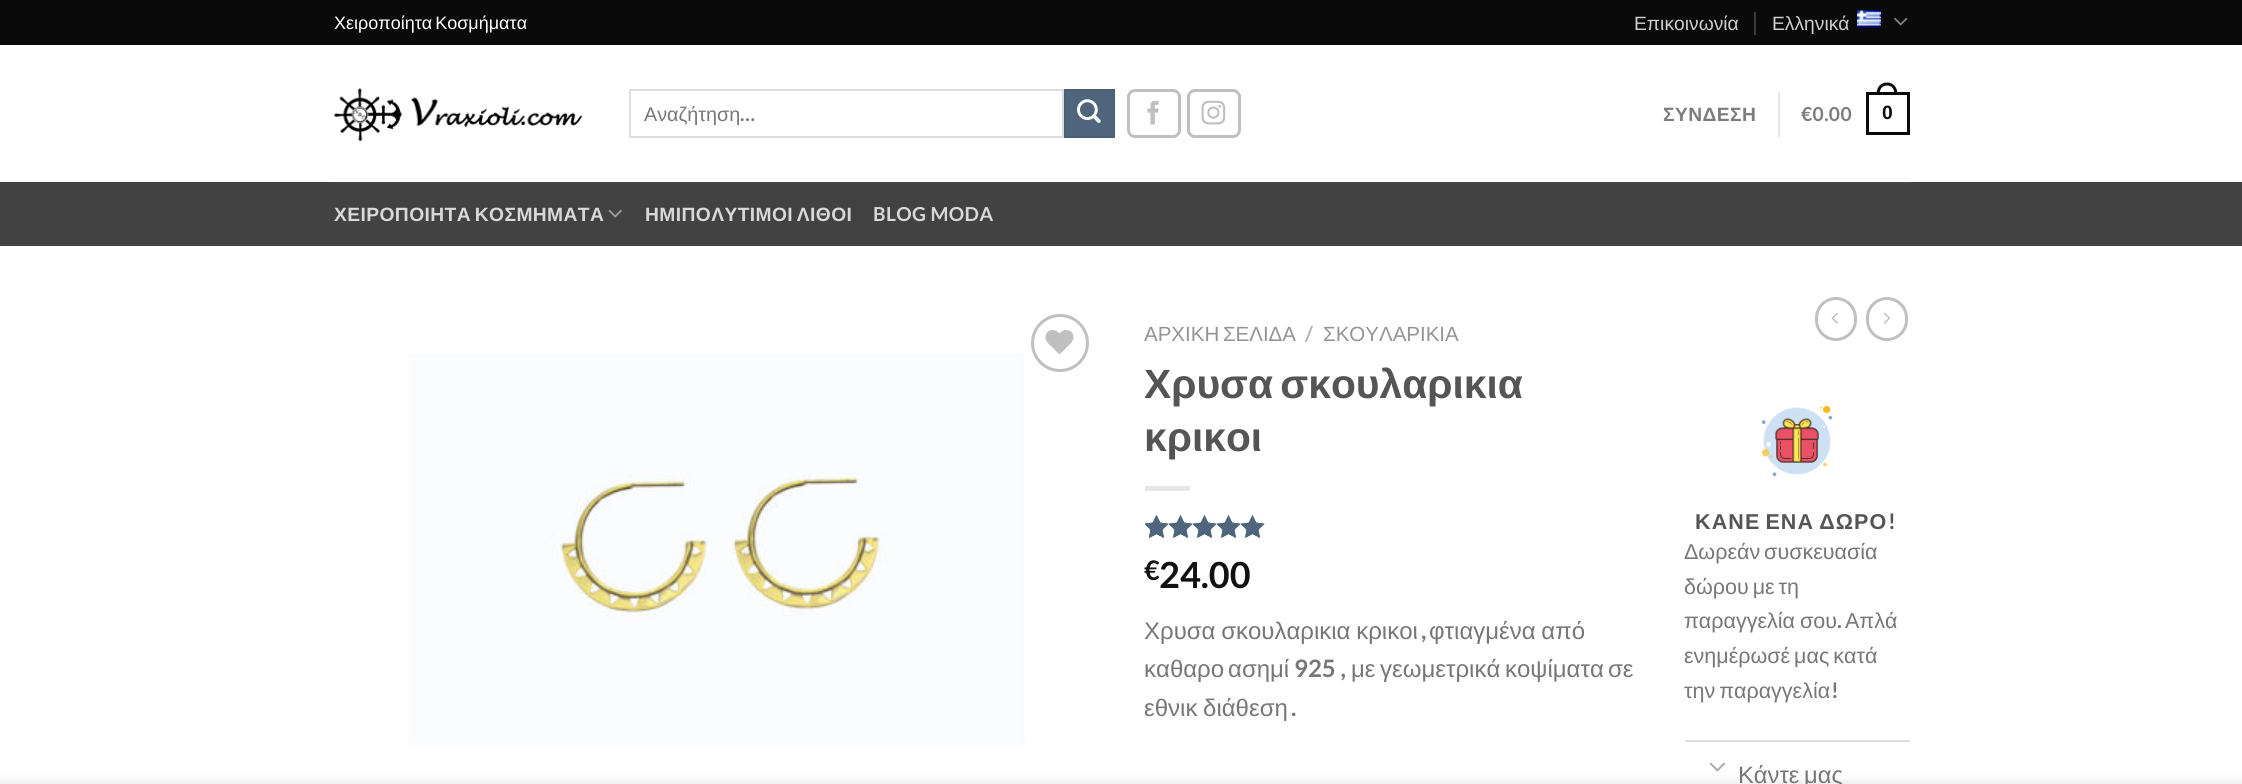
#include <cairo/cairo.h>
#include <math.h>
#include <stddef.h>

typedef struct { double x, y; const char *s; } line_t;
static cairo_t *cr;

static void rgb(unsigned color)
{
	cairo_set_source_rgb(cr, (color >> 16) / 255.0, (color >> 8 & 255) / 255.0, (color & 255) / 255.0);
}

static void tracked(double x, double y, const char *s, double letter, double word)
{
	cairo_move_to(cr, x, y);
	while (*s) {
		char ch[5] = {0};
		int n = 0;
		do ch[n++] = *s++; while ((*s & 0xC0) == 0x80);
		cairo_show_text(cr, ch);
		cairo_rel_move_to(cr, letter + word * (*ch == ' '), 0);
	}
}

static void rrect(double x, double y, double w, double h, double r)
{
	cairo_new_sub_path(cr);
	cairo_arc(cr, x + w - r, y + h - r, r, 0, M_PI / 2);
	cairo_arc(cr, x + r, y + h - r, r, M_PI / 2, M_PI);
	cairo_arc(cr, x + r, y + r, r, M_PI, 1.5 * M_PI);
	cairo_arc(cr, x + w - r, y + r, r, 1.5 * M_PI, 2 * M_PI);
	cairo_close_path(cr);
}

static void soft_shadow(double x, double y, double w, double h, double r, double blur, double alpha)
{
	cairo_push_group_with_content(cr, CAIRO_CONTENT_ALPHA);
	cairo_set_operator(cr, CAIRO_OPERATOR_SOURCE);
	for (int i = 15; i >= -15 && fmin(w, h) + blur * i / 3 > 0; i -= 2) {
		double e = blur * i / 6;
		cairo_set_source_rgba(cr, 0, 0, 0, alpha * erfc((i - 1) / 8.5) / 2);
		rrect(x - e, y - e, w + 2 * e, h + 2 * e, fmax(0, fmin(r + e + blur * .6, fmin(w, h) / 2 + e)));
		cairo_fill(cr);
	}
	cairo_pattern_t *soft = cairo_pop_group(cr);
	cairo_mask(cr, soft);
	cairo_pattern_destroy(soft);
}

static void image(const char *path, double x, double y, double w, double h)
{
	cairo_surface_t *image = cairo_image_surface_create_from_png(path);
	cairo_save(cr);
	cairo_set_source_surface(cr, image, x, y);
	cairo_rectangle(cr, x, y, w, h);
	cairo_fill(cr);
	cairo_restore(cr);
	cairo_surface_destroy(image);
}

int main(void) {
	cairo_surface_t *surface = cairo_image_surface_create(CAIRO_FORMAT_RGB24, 2242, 784);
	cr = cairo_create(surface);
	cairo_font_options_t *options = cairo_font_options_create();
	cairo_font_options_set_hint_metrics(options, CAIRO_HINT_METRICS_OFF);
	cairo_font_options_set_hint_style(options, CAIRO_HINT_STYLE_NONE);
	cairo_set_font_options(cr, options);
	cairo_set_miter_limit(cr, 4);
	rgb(0xffffff);
	cairo_paint(cr);
	rgb(0x0a0a0a);
	cairo_rectangle(cr, 0, 0, 2242, 45);
	cairo_fill(cr);
	rgb(0x3b3b3b);
	cairo_rectangle(cr, 1754, 12, 2, 23);
	cairo_fill(cr);
	image("img/1.png", 1857, 10, 24, 17);
	image("img/2.png", 1894, 17, 14, 9);
	image("img/3.png", 334, 88, 248, 53);
	cairo_rectangle(cr, 630, 90, 433, 47);
	rgb(0xdddddd);
	cairo_stroke(cr);
	rgb(0x4e657b);
	cairo_rectangle(cr, 1065, 90, 49, 47);
	cairo_fill_preserve(cr);
	rgb(0x4a6075);
	cairo_stroke(cr);
	image("img/4.png", 1077, 99, 24, 24);
	rrect(1128.5, 90.5, 51, 46, 6.5);
	rgb(0xc0c0c0);
	cairo_set_line_width(cr, 3);
	cairo_stroke(cr);
	image("img/5.png", 1147, 100, 12, 25);
	rrect(1188.5, 90.5, 51, 46, 6.5);
	cairo_stroke(cr);
	image("img/6.png", 1201, 100, 25, 25);
	rgb(0xe6e6e6);
	cairo_rectangle(cr, 1778, 92, 2, 45);
	cairo_fill(cr);
	cairo_rectangle(cr, 1867.5, 93.5, 41, 40);
	rgb(0x0a0a0a);
	cairo_stroke(cr);
	cairo_set_fill_rule(cr, CAIRO_FILL_RULE_EVEN_ODD);
	cairo_new_path(cr);
	cairo_move_to(cr, 1887, 82.5);
	cairo_curve_to(cr, 1894, 82.5, 1897.5, 88, 1897.5, 94.5);
	cairo_line_to(cr, 1876.5, 94.5);
	cairo_curve_to(cr, 1876.5, 88, 1880, 82.5, 1887, 82.5);
	cairo_close_path(cr);
	cairo_move_to(cr, 1887, 85.5);
	cairo_curve_to(cr, 1892.5, 85.5, 1894.5, 90, 1894.5, 94.5);
	cairo_line_to(cr, 1879.5, 94.5);
	cairo_curve_to(cr, 1879.5, 90, 1881.5, 85.5, 1887, 85.5);
	cairo_close_path(cr);
	cairo_fill(cr);
	rgb(0x424242);
	cairo_rectangle(cr, 0, 182, 2242, 64);
	cairo_fill(cr);
	rgb(0x474747);
	cairo_rectangle(cr, 335, 182, 1575, 2);
	cairo_fill(cr);
	image("img/7.png", 608, 209, 14, 9);
	cairo_arc(cr, 1060, 343, 27.5, 0, 2 * M_PI);
	rgb(0xc0c0c0);
	cairo_stroke(cr);
	image("img/8.png", 1045, 330, 29, 24);
	image("img/9.png", 407, 354, 618, 391);
	rgb(0xe6e6e6);
	cairo_rectangle(cr, 1145, 486, 45, 5);
	cairo_fill(cr);
	image("img/10.png", 1145, 515, 120, 23);
	image("img/11.png", 1145, 515, 120, 23);
	image("img/12.png", 1145, 515, 15, 23);
	rrect(1816.5, 298.5, 39, 41, 19.5);
	rgb(0xc0c0c0);
	cairo_stroke(cr);
	image("img/13.png", 1831, 312, 7, 12);
	rrect(1867.5, 298.5, 39, 41, 19.5);
	cairo_stroke(cr);
	image("img/14.png", 1883, 312, 8, 12);
	image("img/15.png", 1762, 406, 71, 71);
	rgb(0xdddddd);
	cairo_rectangle(cr, 1685, 740, 225, 2);
	cairo_fill(cr);
	image("img/16.png", 1709, 762, 16, 10);
	rgb(0x000000);
	soft_shadow(0, 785, 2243, 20, 0, 7, 0.14);
	cairo_select_font_face(cr, "Liberation Sans", CAIRO_FONT_SLANT_NORMAL, CAIRO_FONT_WEIGHT_NORMAL);
	cairo_set_font_size(cr, 18);
	rgb(0xffffff);
	tracked(334, 29, "Χειροποίητα Κοσμήματα", 0, -2);
	cairo_set_font_size(cr, 19.25);
	rgb(0xcecece);
	cairo_move_to(cr, 1634, 30);
	cairo_show_text(cr, "Επικοινωνία");
	cairo_move_to(cr, 1772, 30);
	cairo_show_text(cr, "Ελληνικά");
	cairo_set_font_size(cr, 19.75);
	rgb(0x777777);
	cairo_move_to(cr, 644, 121);
	cairo_show_text(cr, "Αναζήτηση");
	cairo_select_font_face(cr, "Lato", CAIRO_FONT_SLANT_NORMAL, CAIRO_FONT_WEIGHT_BOLD);
	cairo_move_to(cr, 740, 121);
	cairo_show_text(cr, "…");
	cairo_select_font_face(cr, "Liberation Sans", CAIRO_FONT_SLANT_NORMAL, CAIRO_FONT_WEIGHT_BOLD);
	cairo_set_font_size(cr, 19.25);
	rgb(0x7d7d7d);
	tracked(1663, 121, "ΣΥΝΔΕΣΗ", 0.4, 0);
	cairo_select_font_face(cr, "Lato", CAIRO_FONT_SLANT_NORMAL, CAIRO_FONT_WEIGHT_BOLD);
	tracked(1801, 121, "€0.00", 0.4, 0);
	cairo_select_font_face(cr, "Liberation Sans", CAIRO_FONT_SLANT_NORMAL, CAIRO_FONT_WEIGHT_BOLD);
	rgb(0x0a0a0a);
	tracked(1882, 119, "0", 0.4, 0);
	rgb(0xd9d9d9);
	tracked(334, 221, "ΧΕΙΡΟΠΟΙΗΤΑ ΚΟΣΜΗΜΑΤΑ", 0.4, -2);
	tracked(645, 221, "ΗΜΙΠΟΛΥΤΙΜΟΙ ΛΙΘΟΙ", 0.4, -2);
	cairo_select_font_face(cr, "Lato", CAIRO_FONT_SLANT_NORMAL, CAIRO_FONT_WEIGHT_BOLD);
	tracked(873, 221, "BLOG MODA", 0.4, 0);
	cairo_select_font_face(cr, "Liberation Sans", CAIRO_FONT_SLANT_NORMAL, CAIRO_FONT_WEIGHT_NORMAL);
	cairo_set_font_size(cr, 20.5);
	rgb(0x949494);
	tracked(1144, 341, "ΑΡΧΙΚΗ ΣΕΛΙΔΑ", 0, -2);
	cairo_select_font_face(cr, "Lato", CAIRO_FONT_SLANT_NORMAL, CAIRO_FONT_WEIGHT_BOLD);
	rgb(0xb2b2b2);
	cairo_move_to(cr, 1305, 341);
	cairo_show_text(cr, "/");
	cairo_select_font_face(cr, "Liberation Sans", CAIRO_FONT_SLANT_NORMAL, CAIRO_FONT_WEIGHT_NORMAL);
	rgb(0x949494);
	cairo_move_to(cr, 1323, 341);
	cairo_show_text(cr, "ΣΚΟΥΛΑΡΙΚΙΑ");
	cairo_select_font_face(cr, "Liberation Sans", CAIRO_FONT_SLANT_NORMAL, CAIRO_FONT_WEIGHT_BOLD);
	cairo_set_font_size(cr, 40.75);
	rgb(0x555555);
	tracked(1144, 398, "Χρυσα σκουλαρικια", 0, -4);
	cairo_move_to(cr, 1144, 451);
	cairo_show_text(cr, "κρικοι");
	cairo_select_font_face(cr, "Lato", CAIRO_FONT_SLANT_NORMAL, CAIRO_FONT_WEIGHT_BOLD);
	cairo_set_font_size(cr, 27);
	rgb(0x111111);
	cairo_move_to(cr, 1144, 580);
	cairo_show_text(cr, "€");
	cairo_set_font_size(cr, 36);
	cairo_move_to(cr, 1159, 588);
	cairo_show_text(cr, "24.00");
	cairo_select_font_face(cr, "Liberation Sans", CAIRO_FONT_SLANT_NORMAL, CAIRO_FONT_WEIGHT_NORMAL);
	cairo_set_font_size(cr, 24);
	rgb(0x777777);
	tracked(1144, 639, "Χρυσα σκουλαρικια κρικοι", 0, -1);
	cairo_select_font_face(cr, "Lato", CAIRO_FONT_SLANT_NORMAL, CAIRO_FONT_WEIGHT_BOLD);
	cairo_move_to(cr, 1421, 639);
	cairo_show_text(cr, ",");
	cairo_select_font_face(cr, "Liberation Sans", CAIRO_FONT_SLANT_NORMAL, CAIRO_FONT_WEIGHT_NORMAL);
	tracked(1429, 639, "φτιαγμένα από", 0, -1);
	cairo_move_to(cr, 1144, 677);
	cairo_show_text(cr, "καθαρο");
	cairo_move_to(cr, 1228, 677);
	cairo_show_text(cr, "ασημί");
	cairo_select_font_face(cr, "Lato", CAIRO_FONT_SLANT_NORMAL, CAIRO_FONT_WEIGHT_BOLD);
	cairo_move_to(cr, 1294, 677);
	cairo_show_text(cr, "925 ,");
	cairo_select_font_face(cr, "Liberation Sans", CAIRO_FONT_SLANT_NORMAL, CAIRO_FONT_WEIGHT_NORMAL);
	{
		static const line_t items[] = {
			{1351, 677, "με"},
			{1380, 677, "γεωμετρικά"},
			{1505, 677, "κοψίματα"},
			{1608, 677, "σε"},
		};
		for (size_t i = 0; i < sizeof items / sizeof *items; i++) {
			cairo_move_to(cr, items[i].x, items[i].y);
			cairo_show_text(cr, items[i].s);
		}
	}
	tracked(1144, 716, "εθνικ διάθεση", 0, -1);
	cairo_select_font_face(cr, "Lato", CAIRO_FONT_SLANT_NORMAL, CAIRO_FONT_WEIGHT_BOLD);
	cairo_move_to(cr, 1291, 716);
	cairo_show_text(cr, ".");
	cairo_select_font_face(cr, "Liberation Sans", CAIRO_FONT_SLANT_NORMAL, CAIRO_FONT_WEIGHT_BOLD);
	cairo_set_font_size(cr, 21.5);
	rgb(0x555555);
	tracked(1695, 529, "ΚΑΝΕ ΕΝΑ ΔΩΡΟ", 1.1, -2);
	cairo_select_font_face(cr, "Lato", CAIRO_FONT_SLANT_NORMAL, CAIRO_FONT_WEIGHT_BOLD);
	tracked(1888, 529, "!", 1.1, 0);
	cairo_select_font_face(cr, "Liberation Sans", CAIRO_FONT_SLANT_NORMAL, CAIRO_FONT_WEIGHT_NORMAL);
	rgb(0x777777);
	tracked(1684, 559, "Δωρεάν συσκευασία", 0, -2);
	tracked(1684, 594, "δώρου με τη", 0, -2);
	tracked(1684, 628, "παραγγελία σου", 0, -1);
	cairo_select_font_face(cr, "Lato", CAIRO_FONT_SLANT_NORMAL, CAIRO_FONT_WEIGHT_BOLD);
	cairo_move_to(cr, 1837, 628);
	cairo_show_text(cr, ".");
	cairo_select_font_face(cr, "Liberation Sans", CAIRO_FONT_SLANT_NORMAL, CAIRO_FONT_WEIGHT_NORMAL);
	cairo_move_to(cr, 1845, 628);
	cairo_show_text(cr, "Απλά");
	tracked(1684, 663, "ενημέρωσέ μας κατά", 0, -2);
	tracked(1684, 698, "την παραγγελία", 0, -2);
	cairo_select_font_face(cr, "Lato", CAIRO_FONT_SLANT_NORMAL, CAIRO_FONT_WEIGHT_BOLD);
	cairo_move_to(cr, 1831, 698);
	cairo_show_text(cr, "!");
	cairo_select_font_face(cr, "Liberation Sans", CAIRO_FONT_SLANT_NORMAL, CAIRO_FONT_WEIGHT_NORMAL);
	cairo_set_font_size(cr, 23.75);
	tracked(1738, 783, "Κάντε μας", 0, -2);
	cairo_surface_write_to_png(surface, "page.png");
	cairo_font_options_destroy(options);
	cairo_destroy(cr);
	cairo_surface_destroy(surface);
	return 0;
}
